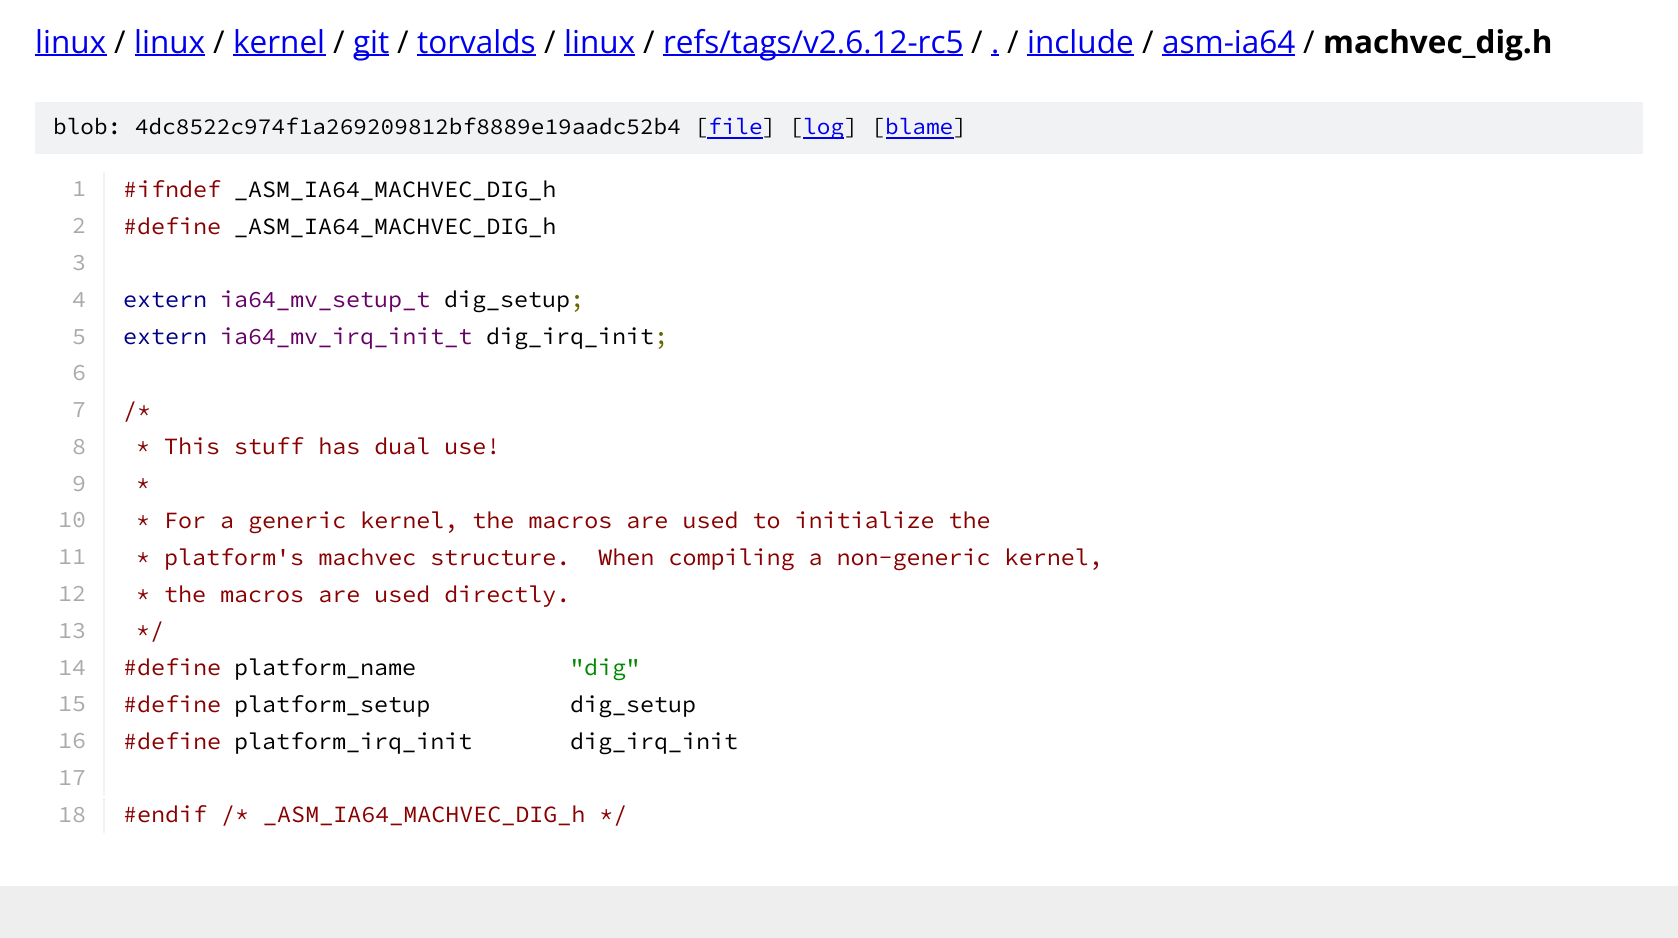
#include <cairo/cairo.h>
#include <math.h>
#include <stddef.h>

typedef struct { double x, y, w, h; unsigned color; } box_t;
static cairo_t *cr;

static void rgb(unsigned color)
{
	cairo_set_source_rgb(cr, (color >> 16) / 255.0, (color >> 8 & 255) / 255.0, (color & 255) / 255.0);
}

int main(void) {
	cairo_surface_t *surface = cairo_image_surface_create(CAIRO_FORMAT_RGB24, 1678, 938);
	cr = cairo_create(surface);
	cairo_font_options_t *options = cairo_font_options_create();
	cairo_font_options_set_hint_metrics(options, CAIRO_HINT_METRICS_OFF);
	cairo_font_options_set_hint_style(options, CAIRO_HINT_STYLE_NONE);
	cairo_set_font_options(cr, options);
	cairo_set_miter_limit(cr, 4);
	rgb(0xffffff);
	cairo_paint(cr);
	{
		static const box_t items[] = {
			{35, 54, 72, 2, 0x0000ee},
			{135, 54, 70, 2, 0x0000ee},
			{233, 54, 93, 2, 0x0000ee},
			{354, 54, 35, 2, 0x0000ee},
			{417, 54, 119, 2, 0x0000ee},
			{564, 54, 71, 2, 0x0000ee},
			{663, 54, 300, 2, 0x0000ee},
			{991, 54, 8, 2, 0x0000ee},
			{1027, 54, 107, 2, 0x0000ee},
			{1162, 54, 133, 2, 0x0000ee},
			{35, 102, 1608, 52, 0xf1f2f3},
			{707, 137, 56, 2, 0x0000ee},
			{803, 137, 41, 2, 0x0000ee},
			{886, 137, 68, 2, 0x0000ee},
			{103, 172, 2, 624, 0xf1f2f3},
			{103, 798, 2, 35, 0xf1f2f3},
			{0, 886, 1678, 52, 0xeeeeee},
		};
		for (size_t i = 0; i < sizeof items / sizeof *items; i++) {
			rgb(items[i].color);
			cairo_rectangle(cr, items[i].x, items[i].y, items[i].w, items[i].h);
			cairo_fill(cr);
		}
	}
	cairo_select_font_face(cr, "Open Sans", CAIRO_FONT_SLANT_NORMAL, CAIRO_FONT_WEIGHT_NORMAL);
	cairo_set_font_size(cr, 31.5);
	rgb(0x0000ee);
	cairo_move_to(cr, 35, 53);
	cairo_show_text(cr, "linux");
	rgb(0x000000);
	cairo_move_to(cr, 114, 53);
	cairo_show_text(cr, "/");
	rgb(0x0000ee);
	cairo_move_to(cr, 134, 53);
	cairo_show_text(cr, "linux");
	rgb(0x000000);
	cairo_move_to(cr, 213, 53);
	cairo_show_text(cr, "/");
	rgb(0x0000ee);
	cairo_move_to(cr, 233, 53);
	cairo_show_text(cr, "kernel");
	rgb(0x000000);
	cairo_move_to(cr, 333, 53);
	cairo_show_text(cr, "/");
	rgb(0x0000ee);
	cairo_move_to(cr, 353, 53);
	cairo_show_text(cr, "git");
	rgb(0x000000);
	cairo_move_to(cr, 397, 53);
	cairo_show_text(cr, "/");
	rgb(0x0000ee);
	cairo_move_to(cr, 417, 53);
	cairo_show_text(cr, "torvalds");
	rgb(0x000000);
	cairo_move_to(cr, 544, 53);
	cairo_show_text(cr, "/");
	rgb(0x0000ee);
	cairo_move_to(cr, 564, 53);
	cairo_show_text(cr, "linux");
	rgb(0x000000);
	cairo_move_to(cr, 643, 53);
	cairo_show_text(cr, "/");
	rgb(0x0000ee);
	cairo_move_to(cr, 663, 53);
	cairo_show_text(cr, "refs/tags/v2.6.12-rc5");
	rgb(0x000000);
	cairo_move_to(cr, 971, 53);
	cairo_show_text(cr, "/");
	rgb(0x0000ee);
	cairo_move_to(cr, 991, 53);
	cairo_show_text(cr, ".");
	rgb(0x000000);
	cairo_move_to(cr, 1007, 53);
	cairo_show_text(cr, "/");
	rgb(0x0000ee);
	cairo_move_to(cr, 1027, 53);
	cairo_show_text(cr, "include");
	rgb(0x000000);
	cairo_move_to(cr, 1142, 53);
	cairo_show_text(cr, "/");
	rgb(0x0000ee);
	cairo_move_to(cr, 1162, 53);
	cairo_show_text(cr, "asm-ia64");
	rgb(0x000000);
	cairo_move_to(cr, 1303, 53);
	cairo_show_text(cr, "/");
	cairo_select_font_face(cr, "Open Sans", CAIRO_FONT_SLANT_NORMAL, CAIRO_FONT_WEIGHT_BOLD);
	cairo_move_to(cr, 1323, 53);
	cairo_show_text(cr, "machvec_dig.h");
	cairo_select_font_face(cr, "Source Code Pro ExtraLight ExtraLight", CAIRO_FONT_SLANT_NORMAL, CAIRO_FONT_WEIGHT_NORMAL);
	cairo_set_font_size(cr, 22.75);
	cairo_move_to(cr, 53, 134);
	cairo_show_text(cr, "blob: 4dc8522c974f1a269209812bf8889e19aadc52b4 [");
	rgb(0x0000ee);
	cairo_move_to(cr, 708, 134);
	cairo_show_text(cr, "file");
	rgb(0x000000);
	cairo_move_to(cr, 762, 134);
	cairo_show_text(cr, "] [");
	rgb(0x0000ee);
	cairo_move_to(cr, 803, 134);
	cairo_show_text(cr, "log");
	rgb(0x000000);
	cairo_move_to(cr, 844, 134);
	cairo_show_text(cr, "] [");
	rgb(0x0000ee);
	cairo_move_to(cr, 885, 134);
	cairo_show_text(cr, "blame");
	rgb(0x000000);
	cairo_move_to(cr, 953, 134);
	cairo_show_text(cr, "]");
	cairo_set_font_size(cr, 23.35);
	rgb(0xaaaaaa);
	cairo_move_to(cr, 72, 196);
	cairo_show_text(cr, "1");
	rgb(0x880000);
	cairo_move_to(cr, 123, 197);
	cairo_show_text(cr, "#ifndef");
	rgb(0x000000);
	cairo_move_to(cr, 234, 197);
	cairo_show_text(cr, "_ASM_IA64_MACHVEC_DIG_h");
	rgb(0xaaaaaa);
	cairo_move_to(cr, 72, 233);
	cairo_show_text(cr, "2");
	rgb(0x880000);
	cairo_move_to(cr, 123, 234);
	cairo_show_text(cr, "#define");
	rgb(0x000000);
	cairo_move_to(cr, 234, 234);
	cairo_show_text(cr, "_ASM_IA64_MACHVEC_DIG_h");
	rgb(0xaaaaaa);
	cairo_move_to(cr, 72, 270);
	cairo_show_text(cr, "3");
	cairo_move_to(cr, 72, 307);
	cairo_show_text(cr, "4");
	rgb(0x000088);
	cairo_move_to(cr, 123, 307);
	cairo_show_text(cr, "extern");
	rgb(0x660066);
	cairo_move_to(cr, 220, 307);
	cairo_show_text(cr, "ia64_mv_setup_t");
	rgb(0x000000);
	cairo_move_to(cr, 444, 307);
	cairo_show_text(cr, "dig_setup");
	rgb(0x666600);
	cairo_move_to(cr, 570, 307);
	cairo_show_text(cr, ";");
	rgb(0xaaaaaa);
	cairo_move_to(cr, 72, 344);
	cairo_show_text(cr, "5");
	rgb(0x000088);
	cairo_move_to(cr, 123, 344);
	cairo_show_text(cr, "extern");
	rgb(0x660066);
	cairo_move_to(cr, 220, 344);
	cairo_show_text(cr, "ia64_mv_irq_init_t");
	rgb(0x000000);
	cairo_move_to(cr, 486, 344);
	cairo_show_text(cr, "dig_irq_init");
	rgb(0x666600);
	cairo_move_to(cr, 654, 344);
	cairo_show_text(cr, ";");
	rgb(0xaaaaaa);
	cairo_move_to(cr, 72, 380);
	cairo_show_text(cr, "6");
	cairo_move_to(cr, 72, 417);
	cairo_show_text(cr, "7");
	rgb(0x880000);
	cairo_move_to(cr, 123, 418);
	cairo_show_text(cr, "/*");
	rgb(0xaaaaaa);
	cairo_move_to(cr, 72, 454);
	cairo_show_text(cr, "8");
	rgb(0x880000);
	cairo_move_to(cr, 136, 454);
	cairo_show_text(cr, "* This stuff has dual use!");
	rgb(0xaaaaaa);
	cairo_move_to(cr, 72, 491);
	cairo_show_text(cr, "9");
	rgb(0x880000);
	cairo_move_to(cr, 136, 491);
	cairo_show_text(cr, "*");
	rgb(0xaaaaaa);
	cairo_move_to(cr, 58, 527);
	cairo_show_text(cr, "10");
	rgb(0x880000);
	cairo_move_to(cr, 136, 528);
	cairo_show_text(cr, "* For a generic kernel, the macros are used to initialize the");
	rgb(0xaaaaaa);
	cairo_move_to(cr, 58, 564);
	cairo_show_text(cr, "11");
	rgb(0x880000);
	cairo_move_to(cr, 136, 565);
	cairo_show_text(cr, "* platform's machvec structure.  When compiling a non-generic kernel,");
	rgb(0xaaaaaa);
	cairo_move_to(cr, 58, 601);
	cairo_show_text(cr, "12");
	rgb(0x880000);
	cairo_move_to(cr, 136, 602);
	cairo_show_text(cr, "* the macros are used directly.");
	rgb(0xaaaaaa);
	cairo_move_to(cr, 58, 638);
	cairo_show_text(cr, "13");
	rgb(0x880000);
	cairo_move_to(cr, 136, 638);
	cairo_show_text(cr, "*/");
	rgb(0xaaaaaa);
	cairo_move_to(cr, 58, 675);
	cairo_show_text(cr, "14");
	rgb(0x880000);
	cairo_move_to(cr, 123, 675);
	cairo_show_text(cr, "#define");
	rgb(0x000000);
	cairo_move_to(cr, 234, 675);
	cairo_show_text(cr, "platform_name");
	rgb(0x008800);
	cairo_move_to(cr, 570, 675);
	cairo_show_text(cr, "\"dig\"");
	rgb(0xaaaaaa);
	cairo_move_to(cr, 58, 711);
	cairo_show_text(cr, "15");
	rgb(0x880000);
	cairo_move_to(cr, 123, 712);
	cairo_show_text(cr, "#define");
	rgb(0x000000);
	cairo_move_to(cr, 234, 712);
	cairo_show_text(cr, "platform_setup");
	cairo_move_to(cr, 570, 712);
	cairo_show_text(cr, "dig_setup");
	rgb(0xaaaaaa);
	cairo_move_to(cr, 58, 748);
	cairo_show_text(cr, "16");
	rgb(0x880000);
	cairo_move_to(cr, 123, 749);
	cairo_show_text(cr, "#define");
	rgb(0x000000);
	cairo_move_to(cr, 234, 749);
	cairo_show_text(cr, "platform_irq_init");
	cairo_move_to(cr, 570, 749);
	cairo_show_text(cr, "dig_irq_init");
	rgb(0xaaaaaa);
	cairo_move_to(cr, 58, 785);
	cairo_show_text(cr, "17");
	cairo_move_to(cr, 58, 822);
	cairo_show_text(cr, "18");
	rgb(0x880000);
	cairo_move_to(cr, 123, 822);
	cairo_show_text(cr, "#endif /* _ASM_IA64_MACHVEC_DIG_h */");
	cairo_surface_write_to_png(surface, "page.png");
	cairo_font_options_destroy(options);
	cairo_destroy(cr);
	cairo_surface_destroy(surface);
	return 0;
}
